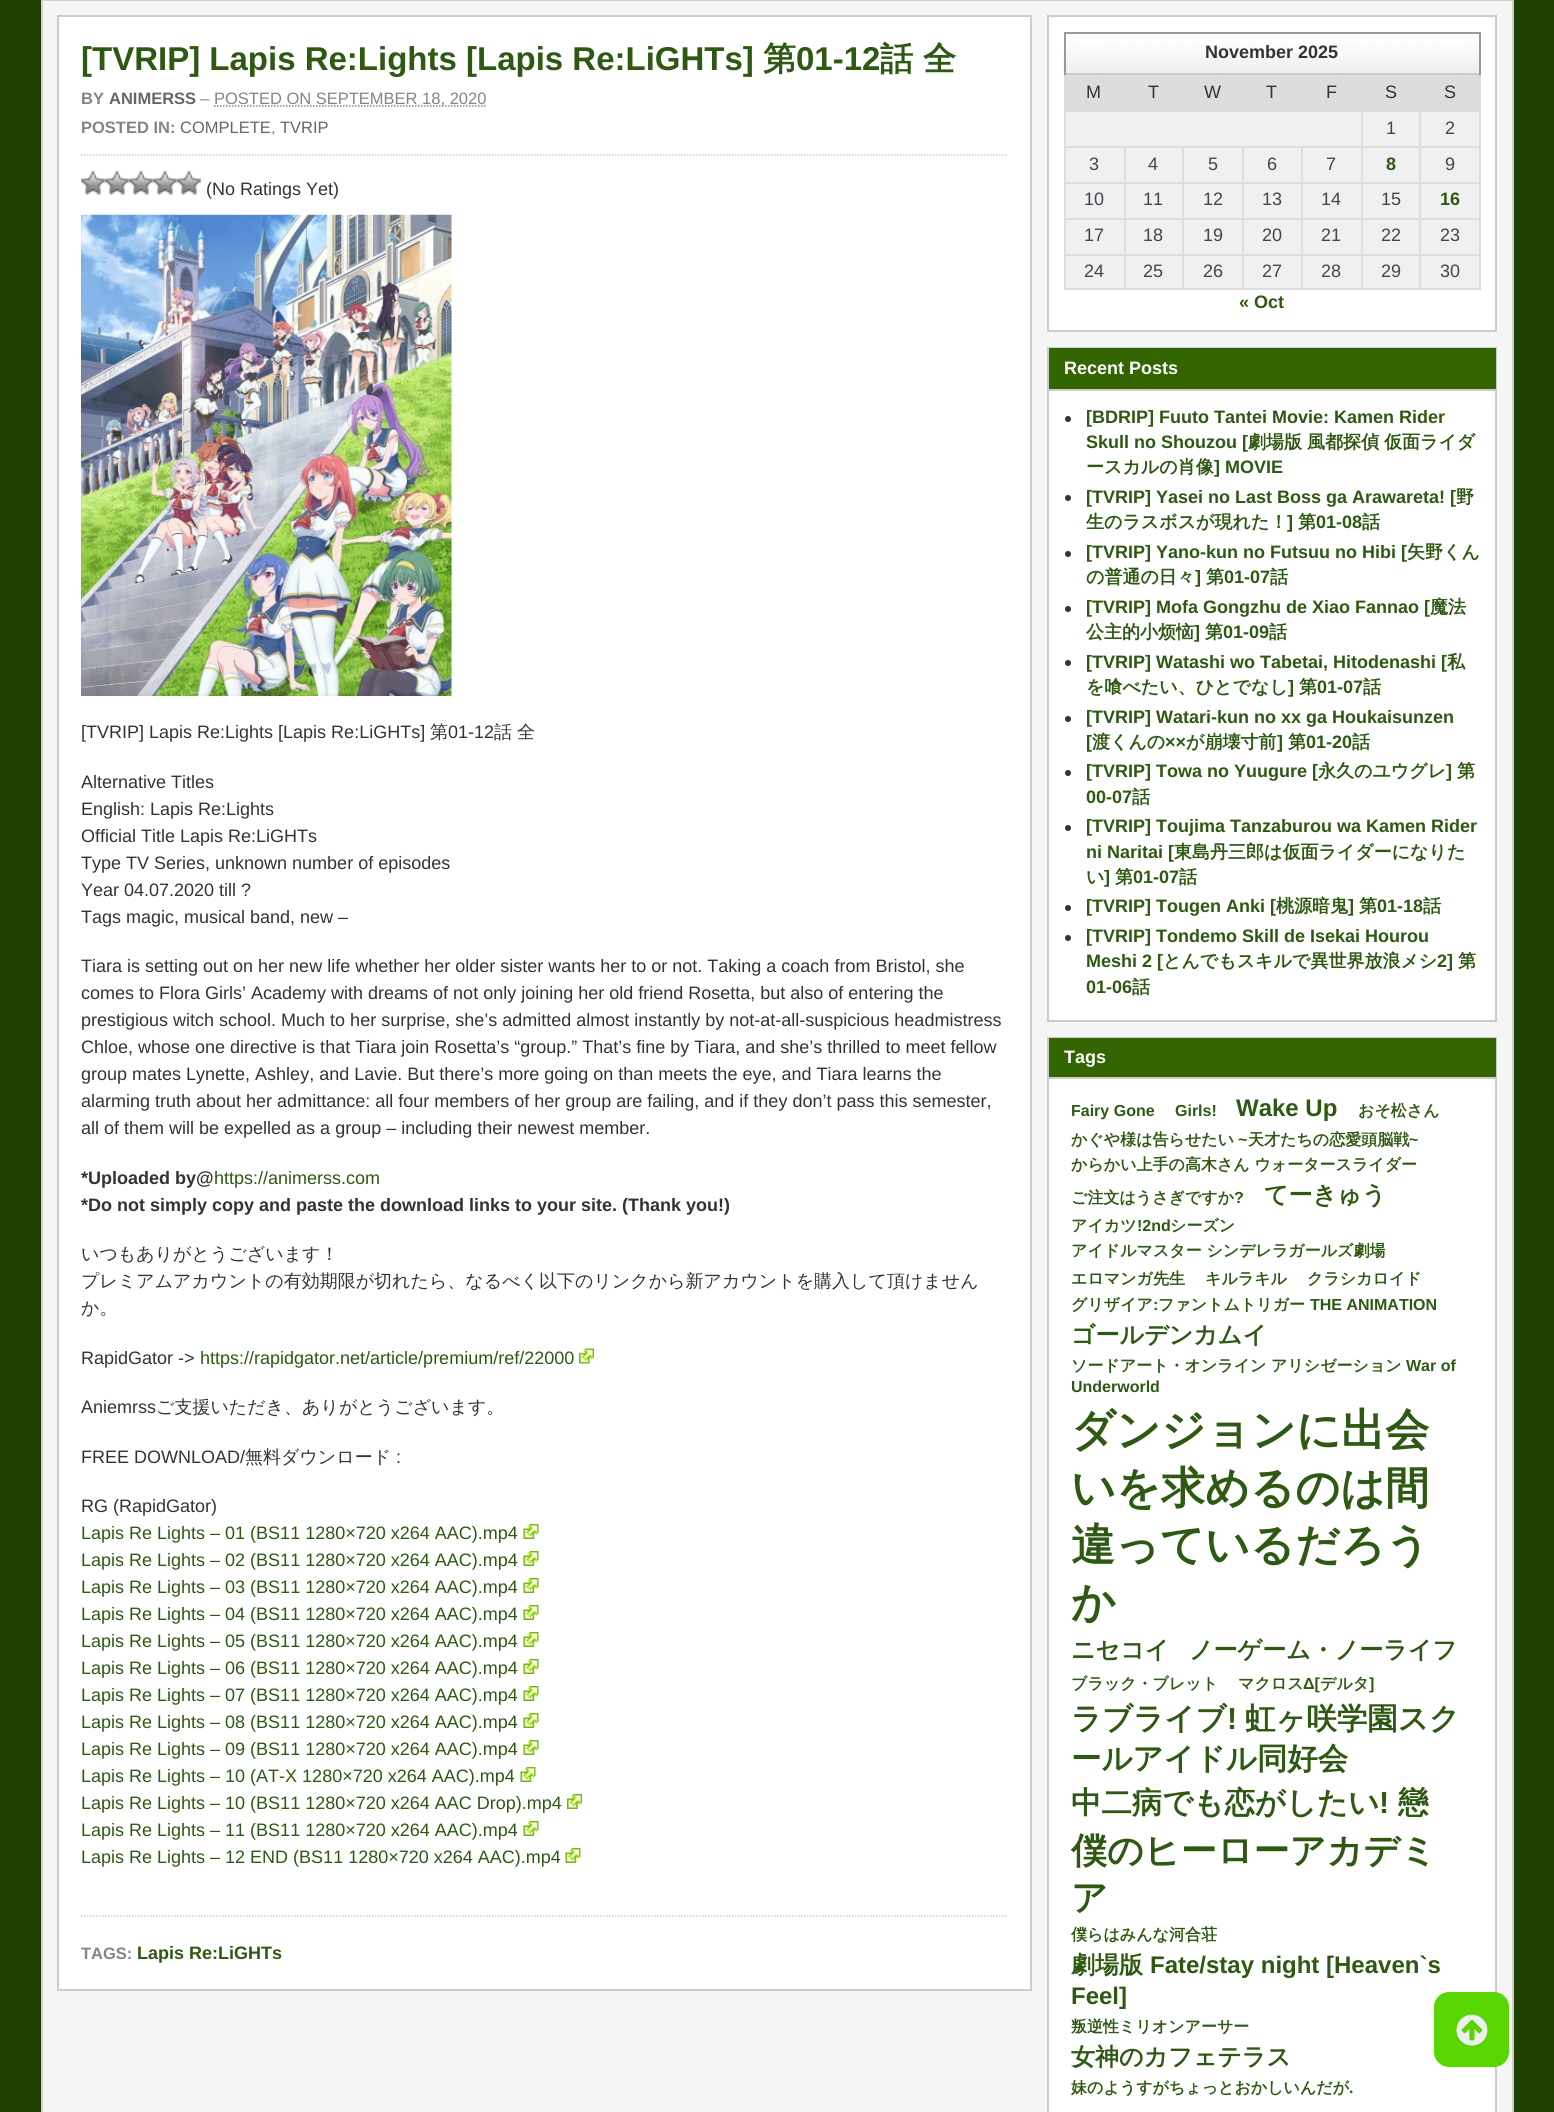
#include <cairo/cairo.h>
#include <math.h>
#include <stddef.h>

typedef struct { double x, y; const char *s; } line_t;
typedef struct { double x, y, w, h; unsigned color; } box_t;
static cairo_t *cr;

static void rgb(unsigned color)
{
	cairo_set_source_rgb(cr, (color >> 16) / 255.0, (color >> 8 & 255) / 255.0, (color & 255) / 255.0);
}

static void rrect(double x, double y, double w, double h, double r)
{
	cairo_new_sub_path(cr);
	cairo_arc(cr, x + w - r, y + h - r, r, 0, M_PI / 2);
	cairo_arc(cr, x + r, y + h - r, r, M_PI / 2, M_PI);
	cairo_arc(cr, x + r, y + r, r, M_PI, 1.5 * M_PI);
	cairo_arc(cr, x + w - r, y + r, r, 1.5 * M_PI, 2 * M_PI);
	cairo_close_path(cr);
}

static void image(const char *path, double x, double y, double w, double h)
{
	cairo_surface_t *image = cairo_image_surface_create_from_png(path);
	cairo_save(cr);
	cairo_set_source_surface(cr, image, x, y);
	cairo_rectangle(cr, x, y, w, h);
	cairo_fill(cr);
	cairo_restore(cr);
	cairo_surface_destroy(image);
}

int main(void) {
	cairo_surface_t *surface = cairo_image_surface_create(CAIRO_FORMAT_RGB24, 1554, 2112);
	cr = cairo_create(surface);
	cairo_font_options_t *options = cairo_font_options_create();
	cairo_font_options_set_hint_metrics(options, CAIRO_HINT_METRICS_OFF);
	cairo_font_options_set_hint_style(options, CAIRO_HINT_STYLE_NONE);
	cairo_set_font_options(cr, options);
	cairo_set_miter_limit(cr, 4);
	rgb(0x204000);
	cairo_paint(cr);
	rgb(0xf5f5f5);
	cairo_rectangle(cr, 42, 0, 1471, 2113);
	cairo_fill_preserve(cr);
	rgb(0xd3d1c7);
	cairo_stroke(cr);
	rgb(0xffffff);
	cairo_rectangle(cr, 58, 16, 973, 1974);
	cairo_fill_preserve(cr);
	rgb(0xcccccc);
	cairo_stroke(cr);
	cairo_new_path(cr);
	cairo_move_to(cr, 81, 155);
	cairo_line_to(cr, 1008, 155);
	cairo_set_line_width(cr, 1.5);
	cairo_set_dash(cr, (double[]){1.5, 1.5}, 2, 0);
	cairo_stroke(cr);
	cairo_new_path(cr);
	cairo_move_to(cr, 214, 106);
	cairo_line_to(cr, 486.5, 106);
	rgb(0x848485);
	cairo_stroke(cr);
	image("img/1.png", 81, 171, 24, 24);
	image("img/1.png", 105, 171, 24, 24);
	image("img/1.png", 129, 171, 24, 24);
	image("img/1.png", 153, 171, 24, 24);
	image("img/1.png", 177, 171, 24, 24);
	image("img/2.png", 81, 214, 371, 482);
	image("img/3.png", 579, 1348, 15, 16);
	image("img/4.png", 523, 1524, 16, 15);
	image("img/4.png", 523, 1551, 16, 15);
	image("img/4.png", 523, 1578, 16, 15);
	image("img/4.png", 523, 1605, 16, 15);
	image("img/4.png", 523, 1632, 16, 15);
	image("img/4.png", 523, 1659, 16, 15);
	image("img/4.png", 523, 1686, 16, 15);
	image("img/4.png", 523, 1713, 16, 15);
	image("img/4.png", 523, 1740, 16, 15);
	image("img/4.png", 520, 1767, 16, 15);
	image("img/5.png", 567, 1794, 15, 15);
	image("img/4.png", 523, 1821, 16, 15);
	image("img/4.png", 565, 1848, 16, 15);
	cairo_new_path(cr);
	cairo_move_to(cr, 81, 1916);
	cairo_line_to(cr, 1008, 1916);
	rgb(0xcccccc);
	cairo_stroke(cr);
	rgb(0xffffff);
	cairo_rectangle(cr, 1048, 16, 448, 315);
	cairo_fill_preserve(cr);
	rgb(0xcccccc);
	cairo_set_line_width(cr, 2);
	cairo_set_dash(cr, NULL, 0, 0);
	cairo_stroke(cr);
	image("img/6.png", 1063, 33, 416, 42);
	cairo_rectangle(cr, 1065, 33, 415, 41);
	cairo_stroke(cr);
	{
		static const box_t items[] = {
			{1064, 32, 417, 2, 0x999999},
			{1479, 32, 2, 43, 0x999999},
			{1064, 32, 2, 43, 0x999999},
			{1066, 77, 58, 33, 0xdddddd},
			{1124, 75, 297, 35, 0xdddddd},
			{1064, 75, 61, 2, 0xdddddd},
			{1419, 110, 62, 2, 0xdddddd},
			{1419, 146, 62, 2, 0xdddddd},
			{1419, 182, 62, 2, 0xdddddd},
			{1419, 218, 62, 2, 0xdddddd},
			{1419, 254, 62, 2, 0xdddddd},
			{1479, 254, 2, 36, 0xdddddd},
			{1419, 288, 62, 2, 0xdddddd},
			{1419, 254, 2, 36, 0xdddddd},
			{1361, 254, 60, 2, 0xdddddd},
			{1419, 218, 2, 37, 0xdddddd},
			{1361, 218, 60, 2, 0xdddddd},
			{1419, 182, 2, 37, 0xdddddd},
			{1361, 182, 60, 2, 0xdddddd},
			{1419, 146, 2, 37, 0xdddddd},
			{1361, 146, 60, 2, 0xdddddd},
			{1419, 110, 2, 37, 0xdddddd},
			{1361, 110, 60, 2, 0xdddddd},
			{1361, 288, 60, 2, 0xdddddd},
			{1361, 254, 2, 36, 0xdddddd},
			{1301, 254, 61, 2, 0xdddddd},
			{1361, 218, 2, 37, 0xdddddd},
			{1301, 218, 61, 2, 0xdddddd},
			{1361, 182, 2, 37, 0xdddddd},
			{1301, 182, 61, 2, 0xdddddd},
			{1361, 146, 2, 37, 0xdddddd},
			{1301, 146, 61, 2, 0xdddddd},
			{1361, 110, 2, 37, 0xdddddd},
			{1064, 110, 298, 2, 0xdddddd},
			{1301, 288, 61, 2, 0xdddddd},
			{1301, 254, 2, 36, 0xdddddd},
			{1242, 254, 60, 2, 0xdddddd},
			{1301, 218, 2, 37, 0xdddddd},
			{1242, 218, 60, 2, 0xdddddd},
			{1301, 182, 2, 37, 0xdddddd},
			{1242, 182, 60, 2, 0xdddddd},
			{1301, 146, 2, 37, 0xdddddd},
			{1242, 146, 60, 2, 0xdddddd},
			{1242, 288, 60, 2, 0xdddddd},
			{1242, 254, 2, 36, 0xdddddd},
			{1182, 254, 62, 2, 0xdddddd},
			{1242, 218, 2, 37, 0xdddddd},
			{1182, 218, 62, 2, 0xdddddd},
			{1242, 182, 2, 37, 0xdddddd},
			{1182, 182, 62, 2, 0xdddddd},
			{1242, 146, 2, 37, 0xdddddd},
			{1182, 146, 62, 2, 0xdddddd},
			{1182, 288, 62, 2, 0xdddddd},
			{1182, 254, 2, 36, 0xdddddd},
			{1124, 254, 60, 2, 0xdddddd},
			{1182, 218, 2, 37, 0xdddddd},
			{1124, 218, 60, 2, 0xdddddd},
			{1182, 182, 2, 37, 0xdddddd},
			{1124, 182, 60, 2, 0xdddddd},
			{1182, 146, 2, 37, 0xdddddd},
			{1124, 146, 60, 2, 0xdddddd},
			{1124, 288, 60, 2, 0xdddddd},
			{1124, 254, 2, 36, 0xdddddd},
			{1064, 254, 61, 2, 0xdddddd},
			{1124, 218, 2, 37, 0xdddddd},
			{1064, 218, 61, 2, 0xdddddd},
			{1124, 182, 2, 37, 0xdddddd},
			{1064, 182, 61, 2, 0xdddddd},
			{1124, 146, 2, 37, 0xdddddd},
			{1064, 146, 61, 2, 0xdddddd},
			{1064, 288, 61, 2, 0xdddddd},
			{1064, 254, 2, 36, 0xdddddd},
			{1064, 218, 2, 37, 0xdddddd},
			{1064, 182, 2, 37, 0xdddddd},
			{1064, 146, 2, 37, 0xdddddd},
			{1064, 110, 2, 37, 0xdddddd},
			{1064, 75, 2, 36, 0xdddddd},
			{1421, 77, 58, 33, 0xdddddd},
			{1419, 75, 62, 2, 0xdddddd},
			{1479, 218, 2, 37, 0xdddddd},
			{1479, 182, 2, 37, 0xdddddd},
			{1479, 146, 2, 37, 0xdddddd},
			{1479, 110, 2, 37, 0xdddddd},
			{1479, 75, 2, 36, 0xdddddd},
			{1066, 112, 295, 34, 0xf0f0f0},
			{1363, 112, 56, 34, 0xf0f0f0},
			{1421, 112, 58, 34, 0xf0f0f0},
			{1066, 148, 58, 34, 0xf0f0f0},
			{1126, 148, 56, 34, 0xf0f0f0},
			{1184, 148, 58, 34, 0xf0f0f0},
			{1244, 148, 57, 34, 0xf0f0f0},
			{1303, 148, 58, 34, 0xf0f0f0},
			{1363, 148, 56, 34, 0xf0f0f0},
			{1421, 148, 58, 34, 0xf0f0f0},
			{1066, 184, 58, 34, 0xf0f0f0},
			{1126, 184, 56, 34, 0xf0f0f0},
			{1184, 184, 58, 34, 0xf0f0f0},
			{1244, 184, 57, 34, 0xf0f0f0},
			{1303, 184, 58, 34, 0xf0f0f0},
			{1363, 184, 56, 34, 0xf0f0f0},
			{1421, 184, 58, 34, 0xf0f0f0},
			{1066, 220, 58, 34, 0xf0f0f0},
			{1126, 220, 56, 34, 0xf0f0f0},
			{1184, 220, 58, 34, 0xf0f0f0},
			{1244, 220, 57, 34, 0xf0f0f0},
			{1303, 220, 58, 34, 0xf0f0f0},
			{1363, 220, 56, 34, 0xf0f0f0},
			{1421, 220, 58, 34, 0xf0f0f0},
			{1066, 256, 58, 32, 0xf0f0f0},
			{1126, 256, 56, 32, 0xf0f0f0},
			{1184, 256, 58, 32, 0xf0f0f0},
			{1244, 256, 57, 32, 0xf0f0f0},
			{1303, 256, 58, 32, 0xf0f0f0},
			{1363, 256, 56, 32, 0xf0f0f0},
			{1421, 256, 58, 32, 0xf0f0f0},
			{1049, 391, 446, 629, 0xffffff},
		};
		for (size_t i = 0; i < sizeof items / sizeof *items; i++) {
			rgb(items[i].color);
			cairo_rectangle(cr, items[i].x, items[i].y, items[i].w, items[i].h);
			cairo_fill(cr);
		}
	}
	cairo_rectangle(cr, 1048, 348, 448, 673);
	rgb(0xcccccc);
	cairo_stroke(cr);
	rgb(0x336500);
	cairo_rectangle(cr, 1049, 348, 447, 41);
	cairo_fill(cr);
	rgb(0xcccccc);
	cairo_rectangle(cr, 1049, 389, 447, 2);
	cairo_fill(cr);
	rgb(0x333333);
	cairo_arc(cr, 1068, 419, 3, 0, 2 * M_PI);
	cairo_fill(cr);
	cairo_arc(cr, 1068, 498, 3, 0, 2 * M_PI);
	cairo_fill(cr);
	cairo_arc(cr, 1068, 554, 3, 0, 2 * M_PI);
	cairo_fill(cr);
	cairo_arc(cr, 1068, 609, 3, 0, 2 * M_PI);
	cairo_fill(cr);
	cairo_arc(cr, 1068, 663, 3, 0, 2 * M_PI);
	cairo_fill(cr);
	cairo_arc(cr, 1068, 719, 3, 0, 2 * M_PI);
	cairo_fill(cr);
	cairo_arc(cr, 1068, 773, 3, 0, 2 * M_PI);
	cairo_fill(cr);
	cairo_arc(cr, 1068, 828, 3, 0, 2 * M_PI);
	cairo_fill(cr);
	cairo_arc(cr, 1068, 908, 3, 0, 2 * M_PI);
	cairo_fill(cr);
	cairo_arc(cr, 1068, 938, 3, 0, 2 * M_PI);
	cairo_fill(cr);
	rgb(0xffffff);
	cairo_rectangle(cr, 1049, 1079, 446, 1033);
	cairo_fill(cr);
	cairo_rectangle(cr, 1048, 1038, 448, 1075);
	rgb(0xcccccc);
	cairo_stroke(cr);
	rgb(0x336500);
	cairo_rectangle(cr, 1049, 1038, 447, 39);
	cairo_fill(cr);
	rgb(0xcccccc);
	cairo_rectangle(cr, 1049, 1077, 447, 2);
	cairo_fill(cr);
	rgb(0x59d600);
	rrect(1434, 1992, 75, 75, 15);
	cairo_fill(cr);
	image("img/7.png", 1456, 2014, 32, 32);
	cairo_select_font_face(cr, "Liberation Sans", CAIRO_FONT_SLANT_NORMAL, CAIRO_FONT_WEIGHT_BOLD);
	cairo_set_font_size(cr, 33);
	rgb(0x2e5912);
	cairo_move_to(cr, 81, 70);
	cairo_show_text(cr, "[TVRIP] Lapis Re:Lights [Lapis Re:LiGHTs]");
	cairo_select_font_face(cr, "WenQuanYi Zen Hei", CAIRO_FONT_SLANT_NORMAL, CAIRO_FONT_WEIGHT_BOLD);
	cairo_move_to(cr, 763, 70);
	cairo_show_text(cr, "第");
	cairo_select_font_face(cr, "Liberation Sans", CAIRO_FONT_SLANT_NORMAL, CAIRO_FONT_WEIGHT_BOLD);
	cairo_move_to(cr, 796, 70);
	cairo_show_text(cr, "01-12");
	cairo_select_font_face(cr, "WenQuanYi Zen Hei", CAIRO_FONT_SLANT_NORMAL, CAIRO_FONT_WEIGHT_BOLD);
	cairo_move_to(cr, 880, 70);
	cairo_show_text(cr, "話");
	cairo_move_to(cr, 923, 70);
	cairo_show_text(cr, "全");
	cairo_select_font_face(cr, "Liberation Sans", CAIRO_FONT_SLANT_NORMAL, CAIRO_FONT_WEIGHT_BOLD);
	cairo_set_font_size(cr, 16.5);
	rgb(0x848485);
	cairo_move_to(cr, 81, 104);
	cairo_show_text(cr, "BY");
	rgb(0x666666);
	cairo_move_to(cr, 109, 104);
	cairo_show_text(cr, "ANIMERSS");
	cairo_select_font_face(cr, "Liberation Sans", CAIRO_FONT_SLANT_NORMAL, CAIRO_FONT_WEIGHT_NORMAL);
	rgb(0x848485);
	cairo_move_to(cr, 200, 104);
	cairo_show_text(cr, "–");
	cairo_move_to(cr, 214, 104);
	cairo_show_text(cr, "POSTED ON SEPTEMBER 18, 2020");
	cairo_select_font_face(cr, "Liberation Sans", CAIRO_FONT_SLANT_NORMAL, CAIRO_FONT_WEIGHT_BOLD);
	cairo_move_to(cr, 81, 133);
	cairo_show_text(cr, "POSTED IN:");
	cairo_select_font_face(cr, "Liberation Sans", CAIRO_FONT_SLANT_NORMAL, CAIRO_FONT_WEIGHT_NORMAL);
	rgb(0x666666);
	cairo_move_to(cr, 180, 133);
	cairo_show_text(cr, "COMPLETE");
	cairo_move_to(cr, 280, 133);
	cairo_show_text(cr, "TVRIP");
	rgb(0x848485);
	cairo_move_to(cr, 271, 133);
	cairo_show_text(cr, ",");
	cairo_set_font_size(cr, 18);
	rgb(0x333333);
	cairo_move_to(cr, 206, 195);
	cairo_show_text(cr, "(No Ratings Yet)");
	cairo_move_to(cr, 81, 738);
	cairo_show_text(cr, "[TVRIP] Lapis Re:Lights [Lapis Re:LiGHTs]");
	cairo_select_font_face(cr, "WenQuanYi Zen Hei Medium", CAIRO_FONT_SLANT_NORMAL, CAIRO_FONT_WEIGHT_NORMAL);
	cairo_move_to(cr, 430, 738);
	cairo_show_text(cr, "第");
	cairo_select_font_face(cr, "Liberation Sans", CAIRO_FONT_SLANT_NORMAL, CAIRO_FONT_WEIGHT_NORMAL);
	cairo_move_to(cr, 448, 738);
	cairo_show_text(cr, "01-12");
	cairo_select_font_face(cr, "WenQuanYi Zen Hei Medium", CAIRO_FONT_SLANT_NORMAL, CAIRO_FONT_WEIGHT_NORMAL);
	cairo_move_to(cr, 494, 738);
	cairo_show_text(cr, "話");
	cairo_move_to(cr, 517, 738);
	cairo_show_text(cr, "全");
	cairo_select_font_face(cr, "Liberation Sans", CAIRO_FONT_SLANT_NORMAL, CAIRO_FONT_WEIGHT_NORMAL);
	{
		static const line_t items[] = {
			{81, 788, "Alternative Titles"},
			{81, 815, "English: Lapis Re:Lights"},
			{81, 842, "Official Title Lapis Re:LiGHTs"},
			{81, 869, "Type TV Series, unknown number of episodes"},
			{81, 896, "Year 04.07.2020 till ?"},
			{81, 923, "Tags magic, musical band, new –"},
			{81, 972, "Tiara is setting out on her new life whether her older sister wants her to or not. Taking a coach from Bristol, she"},
			{81, 999, "comes to Flora Girls’ Academy with dreams of not only joining her old friend Rosetta, but also of entering the"},
			{81, 1026, "prestigious witch school. Much to her surprise, she’s admitted almost instantly by not-at-all-suspicious headmistress"},
			{81, 1053, "Chloe, whose one directive is that Tiara join Rosetta’s “group.” That’s fine by Tiara, and she’s thrilled to meet fellow"},
			{81, 1080, "group mates Lynette, Ashley, and Lavie. But there’s more going on than meets the eye, and Tiara learns the"},
			{81, 1107, "alarming truth about her admittance: all four members of her group are failing, and if they don’t pass this semester,"},
			{81, 1134, "all of them will be expelled as a group – including their newest member."},
		};
		for (size_t i = 0; i < sizeof items / sizeof *items; i++) {
			cairo_move_to(cr, items[i].x, items[i].y);
			cairo_show_text(cr, items[i].s);
		}
	}
	cairo_select_font_face(cr, "Liberation Sans", CAIRO_FONT_SLANT_NORMAL, CAIRO_FONT_WEIGHT_BOLD);
	cairo_move_to(cr, 81, 1184);
	cairo_show_text(cr, "*Uploaded by@");
	cairo_select_font_face(cr, "Liberation Sans", CAIRO_FONT_SLANT_NORMAL, CAIRO_FONT_WEIGHT_NORMAL);
	rgb(0x2e5912);
	cairo_move_to(cr, 214, 1184);
	cairo_show_text(cr, "https://animerss.com");
	cairo_select_font_face(cr, "Liberation Sans", CAIRO_FONT_SLANT_NORMAL, CAIRO_FONT_WEIGHT_BOLD);
	rgb(0x333333);
	cairo_move_to(cr, 81, 1211);
	cairo_show_text(cr, "*Do not simply copy and paste the download links to your site. (Thank you!)");
	cairo_select_font_face(cr, "WenQuanYi Zen Hei Medium", CAIRO_FONT_SLANT_NORMAL, CAIRO_FONT_WEIGHT_NORMAL);
	{
		static const line_t items[] = {
			{81, 1260, "いつもありがとうございます！"},
			{81, 1287, "プレミアムアカウントの有効期限が切れたら、なるべく以下のリンクから新アカウントを購入して頂けません"},
			{81, 1314, "か。"},
		};
		for (size_t i = 0; i < sizeof items / sizeof *items; i++) {
			cairo_move_to(cr, items[i].x, items[i].y);
			cairo_show_text(cr, items[i].s);
		}
	}
	cairo_select_font_face(cr, "Liberation Sans", CAIRO_FONT_SLANT_NORMAL, CAIRO_FONT_WEIGHT_NORMAL);
	cairo_move_to(cr, 81, 1364);
	cairo_show_text(cr, "RapidGator ->");
	rgb(0x2e5912);
	cairo_move_to(cr, 200, 1364);
	cairo_show_text(cr, "https://rapidgator.net/article/premium/ref/22000");
	rgb(0x333333);
	cairo_move_to(cr, 81, 1413);
	cairo_show_text(cr, "Aniemrss");
	cairo_select_font_face(cr, "WenQuanYi Zen Hei Medium", CAIRO_FONT_SLANT_NORMAL, CAIRO_FONT_WEIGHT_NORMAL);
	cairo_move_to(cr, 156, 1413);
	cairo_show_text(cr, "ご支援いただき、ありがとうございます。");
	cairo_select_font_face(cr, "Liberation Sans", CAIRO_FONT_SLANT_NORMAL, CAIRO_FONT_WEIGHT_NORMAL);
	cairo_move_to(cr, 81, 1463);
	cairo_show_text(cr, "FREE DOWNLOAD/");
	cairo_select_font_face(cr, "WenQuanYi Zen Hei Medium", CAIRO_FONT_SLANT_NORMAL, CAIRO_FONT_WEIGHT_NORMAL);
	cairo_move_to(cr, 245, 1463);
	cairo_show_text(cr, "無料ダウンロード");
	cairo_select_font_face(cr, "Liberation Sans", CAIRO_FONT_SLANT_NORMAL, CAIRO_FONT_WEIGHT_NORMAL);
	cairo_move_to(cr, 396, 1463);
	cairo_show_text(cr, ":");
	cairo_move_to(cr, 81, 1512);
	cairo_show_text(cr, "RG (RapidGator)");
	rgb(0x2e5912);
	{
		static const line_t items[] = {
			{81, 1539, "Lapis Re Lights – 01 (BS11 1280×720 x264 AAC).mp4"},
			{81, 1566, "Lapis Re Lights – 02 (BS11 1280×720 x264 AAC).mp4"},
			{81, 1593, "Lapis Re Lights – 03 (BS11 1280×720 x264 AAC).mp4"},
			{81, 1620, "Lapis Re Lights – 04 (BS11 1280×720 x264 AAC).mp4"},
			{81, 1647, "Lapis Re Lights – 05 (BS11 1280×720 x264 AAC).mp4"},
			{81, 1674, "Lapis Re Lights – 06 (BS11 1280×720 x264 AAC).mp4"},
			{81, 1701, "Lapis Re Lights – 07 (BS11 1280×720 x264 AAC).mp4"},
			{81, 1728, "Lapis Re Lights – 08 (BS11 1280×720 x264 AAC).mp4"},
			{81, 1755, "Lapis Re Lights – 09 (BS11 1280×720 x264 AAC).mp4"},
			{81, 1782, "Lapis Re Lights – 10 (AT-X 1280×720 x264 AAC).mp4"},
			{81, 1809, "Lapis Re Lights – 10 (BS11 1280×720 x264 AAC Drop).mp4"},
			{81, 1836, "Lapis Re Lights – 11 (BS11 1280×720 x264 AAC).mp4"},
			{81, 1863, "Lapis Re Lights – 12 END (BS11 1280×720 x264 AAC).mp4"},
		};
		for (size_t i = 0; i < sizeof items / sizeof *items; i++) {
			cairo_move_to(cr, items[i].x, items[i].y);
			cairo_show_text(cr, items[i].s);
		}
	}
	cairo_select_font_face(cr, "Liberation Sans", CAIRO_FONT_SLANT_NORMAL, CAIRO_FONT_WEIGHT_BOLD);
	cairo_set_font_size(cr, 16.5);
	rgb(0x848485);
	cairo_move_to(cr, 81, 1959);
	cairo_show_text(cr, "TAGS:");
	cairo_set_font_size(cr, 18);
	rgb(0x2e5912);
	cairo_move_to(cr, 137, 1959);
	cairo_show_text(cr, "Lapis Re:LiGHTs");
	rgb(0x333333);
	cairo_move_to(cr, 1205, 58);
	cairo_show_text(cr, "November 2025");
	cairo_select_font_face(cr, "Liberation Sans", CAIRO_FONT_SLANT_NORMAL, CAIRO_FONT_WEIGHT_NORMAL);
	{
		static const line_t items[] = {
			{1086, 98, "M"},
			{1148, 98, "T"},
			{1204, 98, "W"},
			{1266, 98, "T"},
			{1326, 98, "F"},
			{1385, 98, "S"},
			{1444, 98, "S"},
		};
		for (size_t i = 0; i < sizeof items / sizeof *items; i++) {
			cairo_move_to(cr, items[i].x, items[i].y);
			cairo_show_text(cr, items[i].s);
		}
	}
	rgb(0x40464d);
	{
		static const line_t items[] = {
			{1386, 134, "1"},
			{1445, 134, "2"},
			{1089, 170, "3"},
			{1148, 170, "4"},
			{1208, 170, "5"},
			{1267, 170, "6"},
			{1326, 170, "7"},
		};
		for (size_t i = 0; i < sizeof items / sizeof *items; i++) {
			cairo_move_to(cr, items[i].x, items[i].y);
			cairo_show_text(cr, items[i].s);
		}
	}
	cairo_select_font_face(cr, "Liberation Sans", CAIRO_FONT_SLANT_NORMAL, CAIRO_FONT_WEIGHT_BOLD);
	rgb(0x2e5912);
	cairo_move_to(cr, 1386, 170);
	cairo_show_text(cr, "8");
	cairo_select_font_face(cr, "Liberation Sans", CAIRO_FONT_SLANT_NORMAL, CAIRO_FONT_WEIGHT_NORMAL);
	rgb(0x40464d);
	{
		static const line_t items[] = {
			{1445, 170, "9"},
			{1084, 205, "10"},
			{1143, 205, "11"},
			{1203, 205, "12"},
			{1262, 205, "13"},
			{1321, 205, "14"},
			{1381, 205, "15"},
		};
		for (size_t i = 0; i < sizeof items / sizeof *items; i++) {
			cairo_move_to(cr, items[i].x, items[i].y);
			cairo_show_text(cr, items[i].s);
		}
	}
	cairo_select_font_face(cr, "Liberation Sans", CAIRO_FONT_SLANT_NORMAL, CAIRO_FONT_WEIGHT_BOLD);
	rgb(0x2e5912);
	cairo_move_to(cr, 1440, 205);
	cairo_show_text(cr, "16");
	cairo_select_font_face(cr, "Liberation Sans", CAIRO_FONT_SLANT_NORMAL, CAIRO_FONT_WEIGHT_NORMAL);
	rgb(0x40464d);
	{
		static const line_t items[] = {
			{1084, 241, "17"},
			{1143, 241, "18"},
			{1203, 241, "19"},
			{1262, 241, "20"},
			{1321, 241, "21"},
			{1381, 241, "22"},
			{1440, 241, "23"},
			{1084, 277, "24"},
			{1143, 277, "25"},
			{1203, 277, "26"},
			{1262, 277, "27"},
			{1321, 277, "28"},
			{1381, 277, "29"},
			{1440, 277, "30"},
		};
		for (size_t i = 0; i < sizeof items / sizeof *items; i++) {
			cairo_move_to(cr, items[i].x, items[i].y);
			cairo_show_text(cr, items[i].s);
		}
	}
	cairo_select_font_face(cr, "Liberation Sans", CAIRO_FONT_SLANT_NORMAL, CAIRO_FONT_WEIGHT_BOLD);
	rgb(0x2e5912);
	cairo_move_to(cr, 1239, 308);
	cairo_show_text(cr, "« Oct");
	rgb(0xffffff);
	cairo_move_to(cr, 1064, 374);
	cairo_show_text(cr, "Recent Posts");
	rgb(0x2e5912);
	cairo_move_to(cr, 1086, 423);
	cairo_show_text(cr, "[BDRIP] Fuuto Tantei Movie: Kamen Rider");
	cairo_move_to(cr, 1086, 448);
	cairo_show_text(cr, "Skull no Shouzou [");
	cairo_select_font_face(cr, "WenQuanYi Zen Hei", CAIRO_FONT_SLANT_NORMAL, CAIRO_FONT_WEIGHT_BOLD);
	{
		static const line_t items[] = {
			{1248, 448, "劇場版"},
			{1307, 448, "風都探偵"},
			{1384, 448, "仮面ライダ"},
			{1086, 473, "ースカルの肖像"},
		};
		for (size_t i = 0; i < sizeof items / sizeof *items; i++) {
			cairo_move_to(cr, items[i].x, items[i].y);
			cairo_show_text(cr, items[i].s);
		}
	}
	cairo_select_font_face(cr, "Liberation Sans", CAIRO_FONT_SLANT_NORMAL, CAIRO_FONT_WEIGHT_BOLD);
	cairo_move_to(cr, 1214, 473);
	cairo_show_text(cr, "] MOVIE");
	cairo_move_to(cr, 1086, 503);
	cairo_show_text(cr, "[TVRIP] Yasei no Last Boss ga Arawareta! [");
	cairo_select_font_face(cr, "WenQuanYi Zen Hei", CAIRO_FONT_SLANT_NORMAL, CAIRO_FONT_WEIGHT_BOLD);
	cairo_move_to(cr, 1456, 503);
	cairo_show_text(cr, "野");
	cairo_move_to(cr, 1086, 528);
	cairo_show_text(cr, "生のラスボスが現れた！");
	cairo_select_font_face(cr, "Liberation Sans", CAIRO_FONT_SLANT_NORMAL, CAIRO_FONT_WEIGHT_BOLD);
	cairo_move_to(cr, 1287, 528);
	cairo_show_text(cr, "]");
	cairo_select_font_face(cr, "WenQuanYi Zen Hei", CAIRO_FONT_SLANT_NORMAL, CAIRO_FONT_WEIGHT_BOLD);
	cairo_move_to(cr, 1298, 528);
	cairo_show_text(cr, "第");
	cairo_select_font_face(cr, "Liberation Sans", CAIRO_FONT_SLANT_NORMAL, CAIRO_FONT_WEIGHT_BOLD);
	cairo_move_to(cr, 1316, 528);
	cairo_show_text(cr, "01-08");
	cairo_select_font_face(cr, "WenQuanYi Zen Hei", CAIRO_FONT_SLANT_NORMAL, CAIRO_FONT_WEIGHT_BOLD);
	cairo_move_to(cr, 1362, 528);
	cairo_show_text(cr, "話");
	cairo_select_font_face(cr, "Liberation Sans", CAIRO_FONT_SLANT_NORMAL, CAIRO_FONT_WEIGHT_BOLD);
	cairo_move_to(cr, 1086, 558);
	cairo_show_text(cr, "[TVRIP] Yano-kun no Futsuu no Hibi [");
	cairo_select_font_face(cr, "WenQuanYi Zen Hei", CAIRO_FONT_SLANT_NORMAL, CAIRO_FONT_WEIGHT_BOLD);
	cairo_move_to(cr, 1407, 558);
	cairo_show_text(cr, "矢野くん");
	cairo_move_to(cr, 1086, 583);
	cairo_show_text(cr, "の普通の日々");
	cairo_select_font_face(cr, "Liberation Sans", CAIRO_FONT_SLANT_NORMAL, CAIRO_FONT_WEIGHT_BOLD);
	cairo_move_to(cr, 1195, 583);
	cairo_show_text(cr, "]");
	cairo_select_font_face(cr, "WenQuanYi Zen Hei", CAIRO_FONT_SLANT_NORMAL, CAIRO_FONT_WEIGHT_BOLD);
	cairo_move_to(cr, 1206, 583);
	cairo_show_text(cr, "第");
	cairo_select_font_face(cr, "Liberation Sans", CAIRO_FONT_SLANT_NORMAL, CAIRO_FONT_WEIGHT_BOLD);
	cairo_move_to(cr, 1224, 583);
	cairo_show_text(cr, "01-07");
	cairo_select_font_face(cr, "WenQuanYi Zen Hei", CAIRO_FONT_SLANT_NORMAL, CAIRO_FONT_WEIGHT_BOLD);
	cairo_move_to(cr, 1270, 583);
	cairo_show_text(cr, "話");
	cairo_select_font_face(cr, "Liberation Sans", CAIRO_FONT_SLANT_NORMAL, CAIRO_FONT_WEIGHT_BOLD);
	cairo_move_to(cr, 1086, 613);
	cairo_show_text(cr, "[TVRIP] Mofa Gongzhu de Xiao Fannao [");
	cairo_select_font_face(cr, "WenQuanYi Zen Hei", CAIRO_FONT_SLANT_NORMAL, CAIRO_FONT_WEIGHT_BOLD);
	cairo_move_to(cr, 1430, 613);
	cairo_show_text(cr, "魔法");
	cairo_move_to(cr, 1086, 638);
	cairo_show_text(cr, "公主的小烦恼");
	cairo_select_font_face(cr, "Liberation Sans", CAIRO_FONT_SLANT_NORMAL, CAIRO_FONT_WEIGHT_BOLD);
	cairo_move_to(cr, 1194, 638);
	cairo_show_text(cr, "]");
	cairo_select_font_face(cr, "WenQuanYi Zen Hei", CAIRO_FONT_SLANT_NORMAL, CAIRO_FONT_WEIGHT_BOLD);
	cairo_move_to(cr, 1205, 638);
	cairo_show_text(cr, "第");
	cairo_select_font_face(cr, "Liberation Sans", CAIRO_FONT_SLANT_NORMAL, CAIRO_FONT_WEIGHT_BOLD);
	cairo_move_to(cr, 1223, 638);
	cairo_show_text(cr, "01-09");
	cairo_select_font_face(cr, "WenQuanYi Zen Hei", CAIRO_FONT_SLANT_NORMAL, CAIRO_FONT_WEIGHT_BOLD);
	cairo_move_to(cr, 1269, 638);
	cairo_show_text(cr, "話");
	cairo_select_font_face(cr, "Liberation Sans", CAIRO_FONT_SLANT_NORMAL, CAIRO_FONT_WEIGHT_BOLD);
	cairo_move_to(cr, 1086, 668);
	cairo_show_text(cr, "[TVRIP] Watashi wo Tabetai, Hitodenashi [");
	cairo_select_font_face(cr, "WenQuanYi Zen Hei", CAIRO_FONT_SLANT_NORMAL, CAIRO_FONT_WEIGHT_BOLD);
	cairo_move_to(cr, 1447, 668);
	cairo_show_text(cr, "私");
	cairo_move_to(cr, 1086, 693);
	cairo_show_text(cr, "を喰べたい、ひとでなし");
	cairo_select_font_face(cr, "Liberation Sans", CAIRO_FONT_SLANT_NORMAL, CAIRO_FONT_WEIGHT_BOLD);
	cairo_move_to(cr, 1288, 693);
	cairo_show_text(cr, "]");
	cairo_select_font_face(cr, "WenQuanYi Zen Hei", CAIRO_FONT_SLANT_NORMAL, CAIRO_FONT_WEIGHT_BOLD);
	cairo_move_to(cr, 1299, 693);
	cairo_show_text(cr, "第");
	cairo_select_font_face(cr, "Liberation Sans", CAIRO_FONT_SLANT_NORMAL, CAIRO_FONT_WEIGHT_BOLD);
	cairo_move_to(cr, 1317, 693);
	cairo_show_text(cr, "01-07");
	cairo_select_font_face(cr, "WenQuanYi Zen Hei", CAIRO_FONT_SLANT_NORMAL, CAIRO_FONT_WEIGHT_BOLD);
	cairo_move_to(cr, 1363, 693);
	cairo_show_text(cr, "話");
	cairo_select_font_face(cr, "Liberation Sans", CAIRO_FONT_SLANT_NORMAL, CAIRO_FONT_WEIGHT_BOLD);
	cairo_move_to(cr, 1086, 723);
	cairo_show_text(cr, "[TVRIP] Watari-kun no xx ga Houkaisunzen");
	cairo_move_to(cr, 1086, 748);
	cairo_show_text(cr, "[");
	cairo_select_font_face(cr, "WenQuanYi Zen Hei", CAIRO_FONT_SLANT_NORMAL, CAIRO_FONT_WEIGHT_BOLD);
	cairo_move_to(cr, 1092, 748);
	cairo_show_text(cr, "渡くんの");
	cairo_select_font_face(cr, "Liberation Sans", CAIRO_FONT_SLANT_NORMAL, CAIRO_FONT_WEIGHT_BOLD);
	cairo_move_to(cr, 1165, 748);
	cairo_show_text(cr, "××");
	cairo_select_font_face(cr, "WenQuanYi Zen Hei", CAIRO_FONT_SLANT_NORMAL, CAIRO_FONT_WEIGHT_BOLD);
	cairo_move_to(cr, 1186, 748);
	cairo_show_text(cr, "が崩壊寸前");
	cairo_select_font_face(cr, "Liberation Sans", CAIRO_FONT_SLANT_NORMAL, CAIRO_FONT_WEIGHT_BOLD);
	cairo_move_to(cr, 1277, 748);
	cairo_show_text(cr, "]");
	cairo_select_font_face(cr, "WenQuanYi Zen Hei", CAIRO_FONT_SLANT_NORMAL, CAIRO_FONT_WEIGHT_BOLD);
	cairo_move_to(cr, 1288, 748);
	cairo_show_text(cr, "第");
	cairo_select_font_face(cr, "Liberation Sans", CAIRO_FONT_SLANT_NORMAL, CAIRO_FONT_WEIGHT_BOLD);
	cairo_move_to(cr, 1306, 748);
	cairo_show_text(cr, "01-20");
	cairo_select_font_face(cr, "WenQuanYi Zen Hei", CAIRO_FONT_SLANT_NORMAL, CAIRO_FONT_WEIGHT_BOLD);
	cairo_move_to(cr, 1352, 748);
	cairo_show_text(cr, "話");
	cairo_select_font_face(cr, "Liberation Sans", CAIRO_FONT_SLANT_NORMAL, CAIRO_FONT_WEIGHT_BOLD);
	cairo_move_to(cr, 1086, 777);
	cairo_show_text(cr, "[TVRIP] Towa no Yuugure [");
	cairo_select_font_face(cr, "WenQuanYi Zen Hei", CAIRO_FONT_SLANT_NORMAL, CAIRO_FONT_WEIGHT_BOLD);
	cairo_move_to(cr, 1318, 777);
	cairo_show_text(cr, "永久のユウグレ");
	cairo_select_font_face(cr, "Liberation Sans", CAIRO_FONT_SLANT_NORMAL, CAIRO_FONT_WEIGHT_BOLD);
	cairo_move_to(cr, 1446, 777);
	cairo_show_text(cr, "]");
	cairo_select_font_face(cr, "WenQuanYi Zen Hei", CAIRO_FONT_SLANT_NORMAL, CAIRO_FONT_WEIGHT_BOLD);
	cairo_move_to(cr, 1457, 777);
	cairo_show_text(cr, "第");
	cairo_select_font_face(cr, "Liberation Sans", CAIRO_FONT_SLANT_NORMAL, CAIRO_FONT_WEIGHT_BOLD);
	cairo_move_to(cr, 1086, 803);
	cairo_show_text(cr, "00-07");
	cairo_select_font_face(cr, "WenQuanYi Zen Hei", CAIRO_FONT_SLANT_NORMAL, CAIRO_FONT_WEIGHT_BOLD);
	cairo_move_to(cr, 1132, 803);
	cairo_show_text(cr, "話");
	cairo_select_font_face(cr, "Liberation Sans", CAIRO_FONT_SLANT_NORMAL, CAIRO_FONT_WEIGHT_BOLD);
	cairo_move_to(cr, 1086, 832);
	cairo_show_text(cr, "[TVRIP] Toujima Tanzaburou wa Kamen Rider");
	cairo_move_to(cr, 1086, 858);
	cairo_show_text(cr, "ni Naritai [");
	cairo_select_font_face(cr, "WenQuanYi Zen Hei", CAIRO_FONT_SLANT_NORMAL, CAIRO_FONT_WEIGHT_BOLD);
	cairo_move_to(cr, 1174, 858);
	cairo_show_text(cr, "東島丹三郎は仮面ライダーになりた");
	cairo_move_to(cr, 1086, 883);
	cairo_show_text(cr, "い");
	cairo_select_font_face(cr, "Liberation Sans", CAIRO_FONT_SLANT_NORMAL, CAIRO_FONT_WEIGHT_BOLD);
	cairo_move_to(cr, 1104, 883);
	cairo_show_text(cr, "]");
	cairo_select_font_face(cr, "WenQuanYi Zen Hei", CAIRO_FONT_SLANT_NORMAL, CAIRO_FONT_WEIGHT_BOLD);
	cairo_move_to(cr, 1115, 883);
	cairo_show_text(cr, "第");
	cairo_select_font_face(cr, "Liberation Sans", CAIRO_FONT_SLANT_NORMAL, CAIRO_FONT_WEIGHT_BOLD);
	cairo_move_to(cr, 1133, 883);
	cairo_show_text(cr, "01-07");
	cairo_select_font_face(cr, "WenQuanYi Zen Hei", CAIRO_FONT_SLANT_NORMAL, CAIRO_FONT_WEIGHT_BOLD);
	cairo_move_to(cr, 1179, 883);
	cairo_show_text(cr, "話");
	cairo_select_font_face(cr, "Liberation Sans", CAIRO_FONT_SLANT_NORMAL, CAIRO_FONT_WEIGHT_BOLD);
	cairo_move_to(cr, 1086, 912);
	cairo_show_text(cr, "[TVRIP] Tougen Anki [");
	cairo_select_font_face(cr, "WenQuanYi Zen Hei", CAIRO_FONT_SLANT_NORMAL, CAIRO_FONT_WEIGHT_BOLD);
	cairo_move_to(cr, 1276, 912);
	cairo_show_text(cr, "桃源暗鬼");
	cairo_select_font_face(cr, "Liberation Sans", CAIRO_FONT_SLANT_NORMAL, CAIRO_FONT_WEIGHT_BOLD);
	cairo_move_to(cr, 1348, 912);
	cairo_show_text(cr, "]");
	cairo_select_font_face(cr, "WenQuanYi Zen Hei", CAIRO_FONT_SLANT_NORMAL, CAIRO_FONT_WEIGHT_BOLD);
	cairo_move_to(cr, 1359, 912);
	cairo_show_text(cr, "第");
	cairo_select_font_face(cr, "Liberation Sans", CAIRO_FONT_SLANT_NORMAL, CAIRO_FONT_WEIGHT_BOLD);
	cairo_move_to(cr, 1377, 912);
	cairo_show_text(cr, "01-18");
	cairo_select_font_face(cr, "WenQuanYi Zen Hei", CAIRO_FONT_SLANT_NORMAL, CAIRO_FONT_WEIGHT_BOLD);
	cairo_move_to(cr, 1423, 912);
	cairo_show_text(cr, "話");
	cairo_select_font_face(cr, "Liberation Sans", CAIRO_FONT_SLANT_NORMAL, CAIRO_FONT_WEIGHT_BOLD);
	cairo_move_to(cr, 1086, 942);
	cairo_show_text(cr, "[TVRIP] Tondemo Skill de Isekai Hourou");
	cairo_move_to(cr, 1086, 967);
	cairo_show_text(cr, "Meshi 2 [");
	cairo_select_font_face(cr, "WenQuanYi Zen Hei", CAIRO_FONT_SLANT_NORMAL, CAIRO_FONT_WEIGHT_BOLD);
	cairo_move_to(cr, 1163, 967);
	cairo_show_text(cr, "とんでもスキルで異世界放浪メシ");
	cairo_select_font_face(cr, "Liberation Sans", CAIRO_FONT_SLANT_NORMAL, CAIRO_FONT_WEIGHT_BOLD);
	cairo_move_to(cr, 1437, 967);
	cairo_show_text(cr, "2]");
	cairo_select_font_face(cr, "WenQuanYi Zen Hei", CAIRO_FONT_SLANT_NORMAL, CAIRO_FONT_WEIGHT_BOLD);
	cairo_move_to(cr, 1458, 967);
	cairo_show_text(cr, "第");
	cairo_select_font_face(cr, "Liberation Sans", CAIRO_FONT_SLANT_NORMAL, CAIRO_FONT_WEIGHT_BOLD);
	cairo_move_to(cr, 1086, 993);
	cairo_show_text(cr, "01-06");
	cairo_select_font_face(cr, "WenQuanYi Zen Hei", CAIRO_FONT_SLANT_NORMAL, CAIRO_FONT_WEIGHT_BOLD);
	cairo_move_to(cr, 1132, 993);
	cairo_show_text(cr, "話");
	cairo_select_font_face(cr, "Liberation Sans", CAIRO_FONT_SLANT_NORMAL, CAIRO_FONT_WEIGHT_BOLD);
	rgb(0xffffff);
	cairo_move_to(cr, 1064, 1063);
	cairo_show_text(cr, "Tags");
	cairo_set_font_size(cr, 16);
	rgb(0x2e5912);
	cairo_move_to(cr, 1071, 1116);
	cairo_show_text(cr, "Fairy Gone");
	cairo_move_to(cr, 1175, 1116);
	cairo_show_text(cr, "Girls!");
	cairo_set_font_size(cr, 24);
	cairo_move_to(cr, 1236, 1116);
	cairo_show_text(cr, "Wake Up");
	cairo_select_font_face(cr, "WenQuanYi Zen Hei", CAIRO_FONT_SLANT_NORMAL, CAIRO_FONT_WEIGHT_BOLD);
	cairo_set_font_size(cr, 16);
	cairo_move_to(cr, 1358, 1116);
	cairo_show_text(cr, "おそ松さん");
	cairo_move_to(cr, 1071, 1145);
	cairo_show_text(cr, "かぐや様は告らせたい");
	cairo_select_font_face(cr, "Liberation Sans", CAIRO_FONT_SLANT_NORMAL, CAIRO_FONT_WEIGHT_BOLD);
	cairo_move_to(cr, 1238, 1145);
	cairo_show_text(cr, "~");
	cairo_select_font_face(cr, "WenQuanYi Zen Hei", CAIRO_FONT_SLANT_NORMAL, CAIRO_FONT_WEIGHT_BOLD);
	cairo_move_to(cr, 1248, 1145);
	cairo_show_text(cr, "天才たちの恋愛頭脳戦");
	cairo_select_font_face(cr, "Liberation Sans", CAIRO_FONT_SLANT_NORMAL, CAIRO_FONT_WEIGHT_BOLD);
	cairo_move_to(cr, 1409, 1145);
	cairo_show_text(cr, "~");
	cairo_select_font_face(cr, "WenQuanYi Zen Hei", CAIRO_FONT_SLANT_NORMAL, CAIRO_FONT_WEIGHT_BOLD);
	cairo_move_to(cr, 1071, 1170);
	cairo_show_text(cr, "からかい上手の高木さん ウォータースライダー");
	cairo_move_to(cr, 1071, 1203);
	cairo_show_text(cr, "ご注文はうさぎですか");
	cairo_select_font_face(cr, "Liberation Sans", CAIRO_FONT_SLANT_NORMAL, CAIRO_FONT_WEIGHT_BOLD);
	cairo_move_to(cr, 1234, 1203);
	cairo_show_text(cr, "?");
	cairo_select_font_face(cr, "WenQuanYi Zen Hei", CAIRO_FONT_SLANT_NORMAL, CAIRO_FONT_WEIGHT_BOLD);
	cairo_set_font_size(cr, 24);
	cairo_move_to(cr, 1264, 1203);
	cairo_show_text(cr, "てーきゅう");
	cairo_set_font_size(cr, 16);
	cairo_move_to(cr, 1071, 1231);
	cairo_show_text(cr, "アイカツ");
	cairo_select_font_face(cr, "Liberation Sans", CAIRO_FONT_SLANT_NORMAL, CAIRO_FONT_WEIGHT_BOLD);
	cairo_move_to(cr, 1137, 1231);
	cairo_show_text(cr, "!2nd");
	cairo_select_font_face(cr, "WenQuanYi Zen Hei", CAIRO_FONT_SLANT_NORMAL, CAIRO_FONT_WEIGHT_BOLD);
	{
		static const line_t items[] = {
			{1170, 1231, "シーズン"},
			{1071, 1256, "アイドルマスター シンデレラガールズ劇場"},
			{1071, 1284, "エロマンガ先生"},
			{1205, 1284, "キルラキル"},
			{1307, 1284, "クラシカロイド"},
			{1071, 1310, "グリザイア"},
		};
		for (size_t i = 0; i < sizeof items / sizeof *items; i++) {
			cairo_move_to(cr, items[i].x, items[i].y);
			cairo_show_text(cr, items[i].s);
		}
	}
	cairo_select_font_face(cr, "Liberation Sans", CAIRO_FONT_SLANT_NORMAL, CAIRO_FONT_WEIGHT_BOLD);
	cairo_move_to(cr, 1153, 1310);
	cairo_show_text(cr, ":");
	cairo_select_font_face(cr, "WenQuanYi Zen Hei", CAIRO_FONT_SLANT_NORMAL, CAIRO_FONT_WEIGHT_BOLD);
	cairo_move_to(cr, 1158, 1310);
	cairo_show_text(cr, "ファントムトリガー");
	cairo_select_font_face(cr, "Liberation Sans", CAIRO_FONT_SLANT_NORMAL, CAIRO_FONT_WEIGHT_BOLD);
	cairo_move_to(cr, 1310, 1310);
	cairo_show_text(cr, "THE ANIMATION");
	cairo_select_font_face(cr, "WenQuanYi Zen Hei", CAIRO_FONT_SLANT_NORMAL, CAIRO_FONT_WEIGHT_BOLD);
	cairo_set_font_size(cr, 24);
	cairo_move_to(cr, 1071, 1343);
	cairo_show_text(cr, "ゴールデンカムイ");
	cairo_set_font_size(cr, 16);
	cairo_move_to(cr, 1071, 1371);
	cairo_show_text(cr, "ソードアート・オンライン");
	cairo_move_to(cr, 1271, 1371);
	cairo_show_text(cr, "アリシゼーション");
	cairo_select_font_face(cr, "Liberation Sans", CAIRO_FONT_SLANT_NORMAL, CAIRO_FONT_WEIGHT_BOLD);
	cairo_move_to(cr, 1406, 1371);
	cairo_show_text(cr, "War of");
	cairo_move_to(cr, 1071, 1392);
	cairo_show_text(cr, "Underworld");
	cairo_select_font_face(cr, "WenQuanYi Zen Hei", CAIRO_FONT_SLANT_NORMAL, CAIRO_FONT_WEIGHT_BOLD);
	cairo_set_font_size(cr, 44);
	{
		static const line_t items[] = {
			{1071, 1445, "ダンジョンに出会"},
			{1071, 1503, "いを求めるのは間"},
			{1071, 1560, "違っているだろう"},
			{1071, 1617, "か"},
		};
		for (size_t i = 0; i < sizeof items / sizeof *items; i++) {
			cairo_move_to(cr, items[i].x, items[i].y);
			cairo_show_text(cr, items[i].s);
		}
	}
	cairo_set_font_size(cr, 24);
	cairo_move_to(cr, 1071, 1658);
	cairo_show_text(cr, "ニセコイ");
	cairo_move_to(cr, 1189, 1658);
	cairo_show_text(cr, "ノーゲーム・ノーライフ");
	cairo_set_font_size(cr, 16);
	cairo_move_to(cr, 1071, 1689);
	cairo_show_text(cr, "ブラック・ブレット");
	cairo_move_to(cr, 1238, 1689);
	cairo_show_text(cr, "マクロス");
	cairo_select_font_face(cr, "Liberation Sans", CAIRO_FONT_SLANT_NORMAL, CAIRO_FONT_WEIGHT_BOLD);
	cairo_move_to(cr, 1303, 1689);
	cairo_show_text(cr, "Δ[");
	cairo_select_font_face(cr, "WenQuanYi Zen Hei", CAIRO_FONT_SLANT_NORMAL, CAIRO_FONT_WEIGHT_BOLD);
	cairo_move_to(cr, 1320, 1689);
	cairo_show_text(cr, "デルタ");
	cairo_select_font_face(cr, "Liberation Sans", CAIRO_FONT_SLANT_NORMAL, CAIRO_FONT_WEIGHT_BOLD);
	cairo_move_to(cr, 1369, 1689);
	cairo_show_text(cr, "]");
	cairo_select_font_face(cr, "WenQuanYi Zen Hei", CAIRO_FONT_SLANT_NORMAL, CAIRO_FONT_WEIGHT_BOLD);
	cairo_set_font_size(cr, 30.4);
	cairo_move_to(cr, 1071, 1729);
	cairo_show_text(cr, "ラブライブ");
	cairo_select_font_face(cr, "Liberation Sans", CAIRO_FONT_SLANT_NORMAL, CAIRO_FONT_WEIGHT_BOLD);
	cairo_move_to(cr, 1227, 1729);
	cairo_show_text(cr, "!");
	cairo_select_font_face(cr, "WenQuanYi Zen Hei", CAIRO_FONT_SLANT_NORMAL, CAIRO_FONT_WEIGHT_BOLD);
	{
		static const line_t items[] = {
			{1245, 1729, "虹ヶ咲学園スク"},
			{1071, 1769, "ールアイドル同好会"},
			{1071, 1813, "中二病でも恋がしたい"},
		};
		for (size_t i = 0; i < sizeof items / sizeof *items; i++) {
			cairo_move_to(cr, items[i].x, items[i].y);
			cairo_show_text(cr, items[i].s);
		}
	}
	cairo_select_font_face(cr, "Liberation Sans", CAIRO_FONT_SLANT_NORMAL, CAIRO_FONT_WEIGHT_BOLD);
	cairo_move_to(cr, 1379, 1813);
	cairo_show_text(cr, "!");
	cairo_select_font_face(cr, "WenQuanYi Zen Hei", CAIRO_FONT_SLANT_NORMAL, CAIRO_FONT_WEIGHT_BOLD);
	cairo_move_to(cr, 1398, 1813);
	cairo_show_text(cr, "戀");
	cairo_set_font_size(cr, 36);
	cairo_move_to(cr, 1071, 1863);
	cairo_show_text(cr, "僕のヒーローアカデミ");
	cairo_move_to(cr, 1071, 1910);
	cairo_show_text(cr, "ア");
	cairo_set_font_size(cr, 16);
	cairo_move_to(cr, 1071, 1940);
	cairo_show_text(cr, "僕らはみんな河合荘");
	cairo_set_font_size(cr, 24);
	cairo_move_to(cr, 1071, 1973);
	cairo_show_text(cr, "劇場版");
	cairo_select_font_face(cr, "Liberation Sans", CAIRO_FONT_SLANT_NORMAL, CAIRO_FONT_WEIGHT_BOLD);
	cairo_move_to(cr, 1150, 1973);
	cairo_show_text(cr, "Fate/stay night [Heaven`s");
	cairo_move_to(cr, 1071, 2004);
	cairo_show_text(cr, "Feel]");
	cairo_select_font_face(cr, "WenQuanYi Zen Hei", CAIRO_FONT_SLANT_NORMAL, CAIRO_FONT_WEIGHT_BOLD);
	cairo_set_font_size(cr, 16);
	cairo_move_to(cr, 1071, 2032);
	cairo_show_text(cr, "叛逆性ミリオンアーサー");
	cairo_set_font_size(cr, 24);
	cairo_move_to(cr, 1071, 2065);
	cairo_show_text(cr, "女神のカフェテラス");
	cairo_set_font_size(cr, 16);
	cairo_move_to(cr, 1071, 2093);
	cairo_show_text(cr, "妹のようすがちょっとおかしいんだが");
	cairo_select_font_face(cr, "Liberation Sans", CAIRO_FONT_SLANT_NORMAL, CAIRO_FONT_WEIGHT_BOLD);
	cairo_move_to(cr, 1349, 2093);
	cairo_show_text(cr, ".");
	cairo_surface_write_to_png(surface, "page.png");
	cairo_font_options_destroy(options);
	cairo_destroy(cr);
	cairo_surface_destroy(surface);
	return 0;
}
